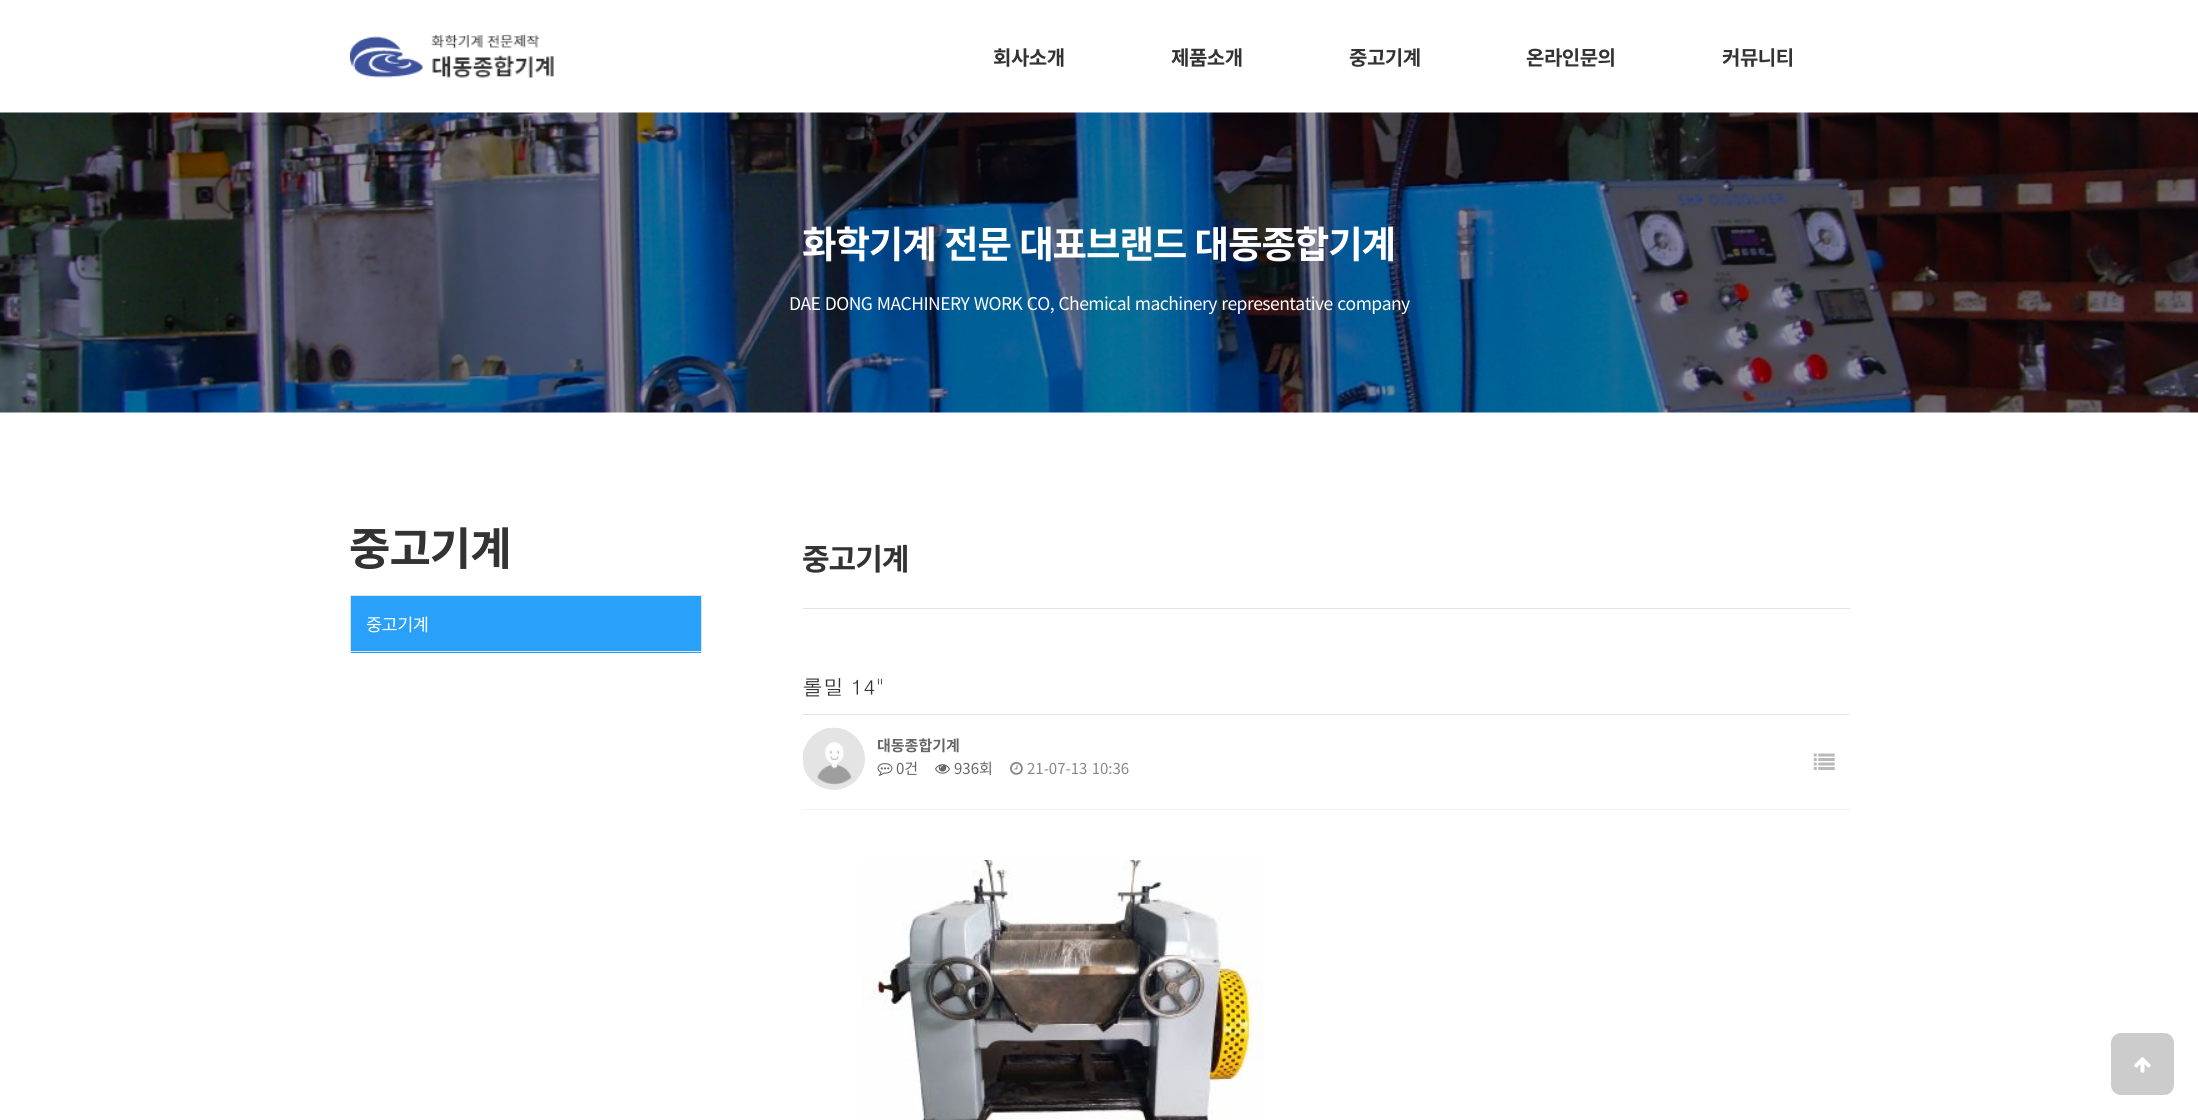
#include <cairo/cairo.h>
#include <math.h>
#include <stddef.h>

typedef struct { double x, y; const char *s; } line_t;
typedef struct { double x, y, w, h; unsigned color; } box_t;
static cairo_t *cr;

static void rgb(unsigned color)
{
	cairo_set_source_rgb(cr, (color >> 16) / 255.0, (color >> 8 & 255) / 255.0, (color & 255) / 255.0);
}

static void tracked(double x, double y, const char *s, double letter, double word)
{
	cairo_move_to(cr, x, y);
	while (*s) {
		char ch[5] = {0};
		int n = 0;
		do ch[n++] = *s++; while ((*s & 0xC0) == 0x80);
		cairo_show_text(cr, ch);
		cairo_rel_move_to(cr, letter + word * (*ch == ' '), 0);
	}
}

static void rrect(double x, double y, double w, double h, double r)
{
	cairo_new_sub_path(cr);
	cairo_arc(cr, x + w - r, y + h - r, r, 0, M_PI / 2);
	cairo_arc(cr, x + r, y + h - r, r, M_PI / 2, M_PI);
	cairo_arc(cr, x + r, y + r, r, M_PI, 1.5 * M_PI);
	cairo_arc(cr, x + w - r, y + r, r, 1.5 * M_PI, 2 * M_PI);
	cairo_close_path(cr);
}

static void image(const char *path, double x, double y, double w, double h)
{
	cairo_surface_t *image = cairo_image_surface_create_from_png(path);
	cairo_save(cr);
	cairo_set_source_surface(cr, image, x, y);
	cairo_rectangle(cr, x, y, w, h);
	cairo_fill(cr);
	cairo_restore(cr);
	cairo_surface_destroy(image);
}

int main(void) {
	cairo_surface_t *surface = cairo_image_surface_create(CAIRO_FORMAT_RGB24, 2198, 1120);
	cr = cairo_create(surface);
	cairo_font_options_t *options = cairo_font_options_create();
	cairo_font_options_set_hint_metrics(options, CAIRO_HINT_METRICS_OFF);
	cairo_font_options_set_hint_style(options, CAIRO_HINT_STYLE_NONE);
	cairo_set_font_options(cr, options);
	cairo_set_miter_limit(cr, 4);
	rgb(0xffffff);
	cairo_paint(cr);
	image("img/1.png", 350, 33, 204, 45);
	image("img/2.png", 0, 112, 2198, 301);
	{
		static const box_t items[] = {
			{350, 595, 353, 1, 0xe3e3e3},
			{701, 595, 1, 58, 0xe3e3e3},
			{350, 595, 1, 58, 0xe3e3e3},
			{351, 596, 350, 57, 0x29a0f9},
			{351, 651, 350, 1, 0xe3e3e3},
			{803, 608, 1047, 1, 0xe3e3e3},
			{803, 714, 1047, 1, 0xe3e3e3},
			{803, 809, 1047, 1, 0xf1f1f1},
		};
		for (size_t i = 0; i < sizeof items / sizeof *items; i++) {
			rgb(items[i].color);
			cairo_rectangle(cr, items[i].x, items[i].y, items[i].w, items[i].h);
			cairo_fill(cr);
		}
	}
	image("img/3.png", 802, 727, 63, 63);
	image("img/4.png", 877, 763, 16, 13);
	image("img/5.png", 935, 764, 15, 10);
	image("img/6.png", 1010, 762, 13, 13);
	image("img/7.png", 1813, 753, 22, 17);
	image("img/8.png", 862, 860, 402, 260);
	rgb(0xcccccc);
	rrect(2111, 1033, 63, 62, 10);
	cairo_fill(cr);
	image("img/9.png", 2134, 1057, 17, 16);
	cairo_select_font_face(cr, "Noto Sans KR", CAIRO_FONT_SLANT_NORMAL, CAIRO_FONT_WEIGHT_BOLD);
	cairo_set_font_size(cr, 20);
	rgb(0x333333);
	{
		static const line_t items[] = {
			{993, 65, "회사소개"},
			{1171, 65, "제품소개"},
			{1349, 65, "중고기계"},
			{1526, 65, "온라인문의"},
			{1722, 65, "커뮤니티"},
		};
		for (size_t i = 0; i < sizeof items / sizeof *items; i++) {
			tracked(items[i].x, items[i].y, items[i].s, -0.5, 0);
		}
	}
	cairo_set_font_size(cr, 37.5);
	rgb(0xffffff);
	tracked(802, 258, "화학기계 전문 대표브랜드 대동종합기계", -1.1, 1);
	cairo_select_font_face(cr, "Noto Sans KR", CAIRO_FONT_SLANT_NORMAL, CAIRO_FONT_WEIGHT_NORMAL);
	cairo_set_font_size(cr, 17.5);
	tracked(789, 310, "DAE DONG MACHINERY WORK CO, Chemical machinery representative company", -0.53, 1);
	cairo_select_font_face(cr, "Noto Sans KR", CAIRO_FONT_SLANT_NORMAL, CAIRO_FONT_WEIGHT_BOLD);
	cairo_set_font_size(cr, 45);
	rgb(0x333333);
	tracked(349, 565, "중고기계", -1, 0);
	cairo_select_font_face(cr, "Noto Sans KR", CAIRO_FONT_SLANT_NORMAL, CAIRO_FONT_WEIGHT_NORMAL);
	cairo_set_font_size(cr, 17.5);
	rgb(0xffffff);
	tracked(366, 631, "중고기계", -0.5, 0);
	cairo_select_font_face(cr, "Noto Sans KR", CAIRO_FONT_SLANT_NORMAL, CAIRO_FONT_WEIGHT_BOLD);
	cairo_set_font_size(cr, 30);
	rgb(0x333333);
	tracked(802, 570, "중고기계", -1, 0);
	cairo_select_font_face(cr, "Dotum", CAIRO_FONT_SLANT_NORMAL, CAIRO_FONT_WEIGHT_NORMAL);
	cairo_set_font_size(cr, 21);
	cairo_move_to(cr, 802, 695);
	cairo_show_text(cr, "롤밀 14\"");
	cairo_select_font_face(cr, "Noto Sans KR", CAIRO_FONT_SLANT_NORMAL, CAIRO_FONT_WEIGHT_BOLD);
	cairo_set_font_size(cr, 15);
	rgb(0x666666);
	cairo_move_to(cr, 877, 751);
	cairo_show_text(cr, "대동종합기계");
	cairo_select_font_face(cr, "Noto Sans KR", CAIRO_FONT_SLANT_NORMAL, CAIRO_FONT_WEIGHT_NORMAL);
	cairo_move_to(cr, 896, 774);
	cairo_show_text(cr, "0건");
	cairo_move_to(cr, 954, 774);
	cairo_show_text(cr, "936회");
	rgb(0x888888);
	tracked(1027, 774, "21-07-13 10:36", 0, 1);
	cairo_surface_write_to_png(surface, "page.png");
	cairo_font_options_destroy(options);
	cairo_destroy(cr);
	cairo_surface_destroy(surface);
	return 0;
}
